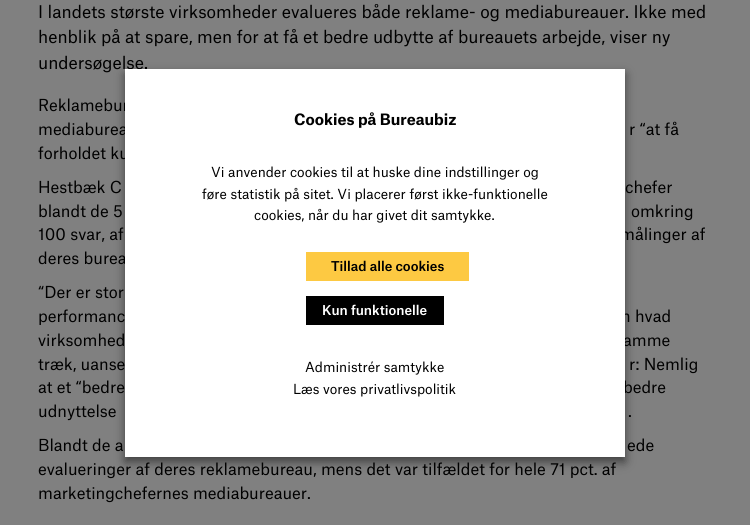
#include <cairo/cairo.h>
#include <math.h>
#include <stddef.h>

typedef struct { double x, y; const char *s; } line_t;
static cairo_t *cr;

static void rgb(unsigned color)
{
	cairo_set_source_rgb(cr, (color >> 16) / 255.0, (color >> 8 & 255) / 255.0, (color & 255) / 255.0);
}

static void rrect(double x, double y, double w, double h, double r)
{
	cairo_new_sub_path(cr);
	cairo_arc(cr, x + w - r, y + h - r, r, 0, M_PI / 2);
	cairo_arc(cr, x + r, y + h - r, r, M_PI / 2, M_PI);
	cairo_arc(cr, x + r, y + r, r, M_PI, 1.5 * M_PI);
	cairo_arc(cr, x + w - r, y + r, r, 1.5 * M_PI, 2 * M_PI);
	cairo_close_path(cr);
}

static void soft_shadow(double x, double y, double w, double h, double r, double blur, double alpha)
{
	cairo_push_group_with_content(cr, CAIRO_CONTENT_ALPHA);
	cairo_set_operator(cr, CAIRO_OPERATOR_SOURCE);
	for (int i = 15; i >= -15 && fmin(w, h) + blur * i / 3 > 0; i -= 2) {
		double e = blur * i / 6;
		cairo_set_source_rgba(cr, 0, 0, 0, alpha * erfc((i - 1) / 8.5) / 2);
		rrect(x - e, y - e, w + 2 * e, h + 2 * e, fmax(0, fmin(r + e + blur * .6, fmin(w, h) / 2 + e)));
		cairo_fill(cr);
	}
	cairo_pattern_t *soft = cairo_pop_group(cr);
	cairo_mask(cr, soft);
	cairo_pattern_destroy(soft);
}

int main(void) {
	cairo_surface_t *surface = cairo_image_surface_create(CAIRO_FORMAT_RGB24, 750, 525);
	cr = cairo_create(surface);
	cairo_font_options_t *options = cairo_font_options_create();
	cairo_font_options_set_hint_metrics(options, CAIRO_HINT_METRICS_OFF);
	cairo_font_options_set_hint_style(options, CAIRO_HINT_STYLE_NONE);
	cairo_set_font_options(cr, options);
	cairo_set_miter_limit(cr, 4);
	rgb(0x808080);
	cairo_paint(cr);
	rgb(0x000000);
	soft_shadow(125, 74, 500, 388, 0, 5, 0.5);
	cairo_select_font_face(cr, "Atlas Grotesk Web", CAIRO_FONT_SLANT_NORMAL, CAIRO_FONT_WEIGHT_NORMAL);
	cairo_set_font_size(cr, 16.75);
	rgb(0x000000);
	{
		static const line_t items[] = {
			{38, 18, "I landets største virksomheder evalueres både reklame- og mediabureauer. Ikke med"},
			{38, 43, "henblik på at spare, men for at få et bedre udbytte af bureauets arbejde, viser ny"},
			{38, 69, "undersøgelse."},
		};
		for (size_t i = 0; i < sizeof items / sizeof *items; i++) {
			cairo_move_to(cr, items[i].x, items[i].y);
			cairo_show_text(cr, items[i].s);
		}
	}
	cairo_set_font_size(cr, 15.85);
	{
		static const line_t items[] = {
			{38, 111, "Reklamebur"},
			{38, 135, "mediaburea"},
			{629, 135, "r “at få"},
			{38, 159, "forholdet ku"},
			{38, 193, "Hestbæk C"},
			{625, 193, "chefer"},
			{38, 217, "blandt de 5"},
			{631, 217, "omkring"},
			{38, 240, "100 svar, af"},
			{620, 240, "målinger af"},
			{38, 264, "deres burea"},
			{38, 298, "“Der er stor"},
			{38, 322, "performanc"},
			{621, 322, "n hvad"},
			{38, 346, "virksomhed"},
			{623, 346, "amme"},
			{38, 370, "træk, uanse"},
			{629, 370, "r: Nemlig"},
			{38, 393, "at et “bedre"},
			{623, 393, "bedre"},
			{38, 417, "udnyttelse"},
			{628, 417, "."},
			{38, 451, "Blandt de a"},
			{627, 451, "ede"},
			{38, 475, "evalueringer af deres reklamebureau, mens det var tilfældet for hele 71 pct. af"},
			{38, 499, "marketingchefernes mediabureauer."},
		};
		for (size_t i = 0; i < sizeof items / sizeof *items; i++) {
			cairo_move_to(cr, items[i].x, items[i].y);
			cairo_show_text(cr, items[i].s);
		}
	}
	rgb(0xffffff);
	cairo_rectangle(cr, 125, 69, 500, 388);
	cairo_fill(cr);
	cairo_select_font_face(cr, "Atlas Grotesk Web", CAIRO_FONT_SLANT_NORMAL, CAIRO_FONT_WEIGHT_BOLD);
	cairo_set_font_size(cr, 15);
	rgb(0x000000);
	cairo_move_to(cr, 294, 125);
	cairo_show_text(cr, "Cookies på Bureaubiz");
	cairo_select_font_face(cr, "Atlas Grotesk Web", CAIRO_FONT_SLANT_NORMAL, CAIRO_FONT_WEIGHT_NORMAL);
	cairo_set_font_size(cr, 13.3);
	{
		static const line_t items[] = {
			{211, 177, "Vi anvender cookies til at huske dine indstillinger og"},
			{202, 199, "føre statistik på sitet. Vi placerer først ikke-funktionelle"},
			{254, 220, "cookies, når du har givet dit samtykke."},
		};
		for (size_t i = 0; i < sizeof items / sizeof *items; i++) {
			cairo_move_to(cr, items[i].x, items[i].y);
			cairo_show_text(cr, items[i].s);
		}
	}
	rgb(0xfdc942);
	cairo_rectangle(cr, 306, 252, 163, 29);
	cairo_fill(cr);
	cairo_select_font_face(cr, "Atlas Grotesk Web Medium", CAIRO_FONT_SLANT_NORMAL, CAIRO_FONT_WEIGHT_NORMAL);
	cairo_set_font_size(cr, 13);
	rgb(0x000000);
	cairo_move_to(cr, 331, 271);
	cairo_show_text(cr, "Tillad alle cookies");
	cairo_rectangle(cr, 306, 296, 138, 29);
	cairo_fill(cr);
	rgb(0xffffff);
	cairo_move_to(cr, 322, 315);
	cairo_show_text(cr, "Kun funktionelle");
	cairo_select_font_face(cr, "Atlas Grotesk Web", CAIRO_FONT_SLANT_NORMAL, CAIRO_FONT_WEIGHT_NORMAL);
	cairo_set_font_size(cr, 13.3);
	rgb(0x000000);
	cairo_move_to(cr, 305, 372);
	cairo_show_text(cr, "Administrér samtykke");
	cairo_move_to(cr, 293, 394);
	cairo_show_text(cr, "Læs vores privatlivspolitik");
	cairo_surface_write_to_png(surface, "page.png");
	cairo_font_options_destroy(options);
	cairo_destroy(cr);
	cairo_surface_destroy(surface);
	return 0;
}
